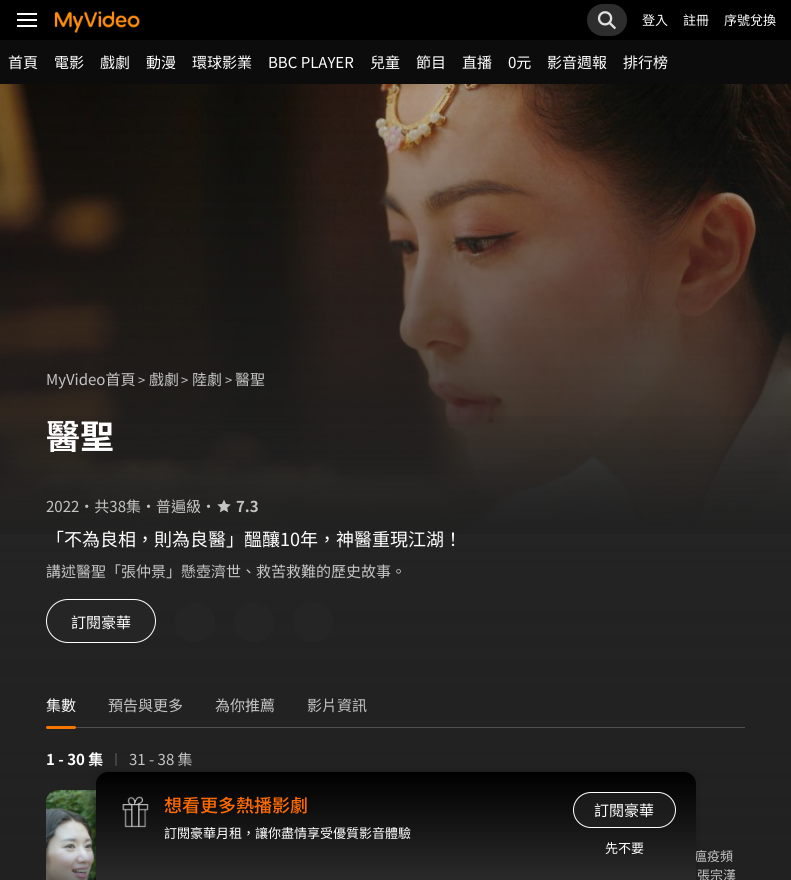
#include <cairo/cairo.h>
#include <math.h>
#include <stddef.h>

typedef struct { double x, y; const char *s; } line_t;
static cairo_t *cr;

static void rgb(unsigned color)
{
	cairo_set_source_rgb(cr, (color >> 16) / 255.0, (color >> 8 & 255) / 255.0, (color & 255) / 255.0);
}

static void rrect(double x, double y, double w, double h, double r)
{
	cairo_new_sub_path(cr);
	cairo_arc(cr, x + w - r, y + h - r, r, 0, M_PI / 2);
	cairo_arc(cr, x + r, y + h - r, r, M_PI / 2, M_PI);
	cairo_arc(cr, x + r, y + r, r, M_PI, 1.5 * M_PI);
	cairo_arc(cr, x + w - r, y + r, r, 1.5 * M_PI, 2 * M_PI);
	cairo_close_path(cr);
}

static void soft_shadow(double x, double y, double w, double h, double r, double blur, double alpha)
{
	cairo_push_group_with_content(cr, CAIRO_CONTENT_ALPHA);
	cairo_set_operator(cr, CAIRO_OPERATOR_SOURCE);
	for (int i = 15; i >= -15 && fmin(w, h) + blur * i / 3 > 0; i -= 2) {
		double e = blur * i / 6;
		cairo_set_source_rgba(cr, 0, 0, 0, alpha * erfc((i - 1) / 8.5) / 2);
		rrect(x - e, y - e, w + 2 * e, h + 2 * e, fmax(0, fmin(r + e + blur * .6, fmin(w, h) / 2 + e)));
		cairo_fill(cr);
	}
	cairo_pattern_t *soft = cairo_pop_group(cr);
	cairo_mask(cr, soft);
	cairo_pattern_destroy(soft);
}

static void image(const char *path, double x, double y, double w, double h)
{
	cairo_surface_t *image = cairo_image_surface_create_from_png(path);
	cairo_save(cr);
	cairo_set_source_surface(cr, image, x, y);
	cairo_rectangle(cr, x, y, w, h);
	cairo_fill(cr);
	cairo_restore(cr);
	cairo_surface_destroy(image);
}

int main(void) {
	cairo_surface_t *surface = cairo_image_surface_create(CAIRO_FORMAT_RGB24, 791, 880);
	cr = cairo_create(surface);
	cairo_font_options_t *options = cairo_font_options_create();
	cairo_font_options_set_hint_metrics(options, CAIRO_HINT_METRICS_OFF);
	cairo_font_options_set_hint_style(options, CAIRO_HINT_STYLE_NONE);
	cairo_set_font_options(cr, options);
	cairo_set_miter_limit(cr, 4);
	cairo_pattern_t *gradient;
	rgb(0x272727);
	cairo_paint(cr);
	rgb(0x000000);
	cairo_rectangle(cr, 0, 0, 791, 40);
	cairo_fill(cr);
	image("img/1.png", 17, 13, 20, 14);
	image("img/2.png", 54, 11, 86, 22);
	rgb(0x2d2d2d);
	rrect(587, 4, 40, 32, 16);
	cairo_fill(cr);
	image("img/3.png", 597, 11, 19, 19);
	rgb(0x0c0c0c);
	cairo_rectangle(cr, 0, 40, 791, 44);
	cairo_fill(cr);
	image("img/4.png", 0, 84, 791, 447);
	gradient = cairo_pattern_create_linear(394, 84, 394, 534);
	cairo_pattern_add_color_stop_rgba(gradient, 0, 0.129, 0.129, 0.129, 0.2);
	cairo_pattern_add_color_stop_rgba(gradient, 1, 0.129, 0.129, 0.129, 1);
	cairo_set_source(cr, gradient);
	cairo_pattern_destroy(gradient);
	cairo_rectangle(cr, 0, 84, 791, 450);
	cairo_fill(cr);
	gradient = cairo_pattern_create_linear(395, 84, 396, 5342);
	cairo_pattern_add_color_stop_rgba(gradient, 0.06, 0.129, 0.129, 0.129, 0);
	cairo_pattern_add_color_stop_rgba(gradient, 0.08, 0.129, 0.129, 0.129, 0.45);
	cairo_pattern_add_color_stop_rgba(gradient, 0.1, 0.129, 0.129, 0.129, 0.7);
	cairo_pattern_add_color_stop_rgba(gradient, 0.15, 0.129, 0.129, 0.129, 1);
	cairo_set_source(cr, gradient);
	cairo_pattern_destroy(gradient);
	cairo_rectangle(cr, 0, 416, 791, 464);
	cairo_fill(cr);
	image("img/5.png", 217, 499, 14, 14);
	rgb(0x252525);
	rrect(46.5, 599.5, 109, 43, 21.5);
	cairo_fill_preserve(cr);
	rgb(0xffffff);
	cairo_set_line_width(cr, 1);
	cairo_stroke(cr);
	rgb(0x252525);
	cairo_arc(cr, 195, 622, 20, 0, 2 * M_PI);
	cairo_fill(cr);
	cairo_arc(cr, 254, 622, 20, 0, 2 * M_PI);
	cairo_fill(cr);
	cairo_arc(cr, 313, 622, 20, 0, 2 * M_PI);
	cairo_fill(cr);
	rgb(0x4f4f4f);
	cairo_rectangle(cr, 46, 727, 699, 1);
	cairo_fill(cr);
	rgb(0xf57600);
	rrect(46, 726, 30, 3, 1.5);
	cairo_fill(cr);
	rgb(0x424242);
	rrect(115, 753, 2, 13, 1);
	cairo_fill(cr);
	image("img/6.png", 46, 790, 50, 90);
	gradient = cairo_pattern_create_linear(151, 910, 153, 789);
	cairo_pattern_add_color_stop_rgba(gradient, 0, 0, 0, 0, 0.8);
	cairo_pattern_add_color_stop_rgba(gradient, 0.28, 0, 0, 0, 0.29);
	cairo_pattern_add_color_stop_rgba(gradient, 0.47, 0, 0, 0, 0);
	cairo_set_source(cr, gradient);
	cairo_pattern_destroy(gradient);
	cairo_rectangle(cr, 46, 853, 50, 27);
	cairo_fill(cr);
	rgb(0x1b1b1b);
	soft_shadow(96, 771, 600, 108, 12, 4, 0.8);
	cairo_select_font_face(cr, "Noto Sans TC", CAIRO_FONT_SLANT_NORMAL, CAIRO_FONT_WEIGHT_NORMAL);
	cairo_set_font_size(cr, 13);
	rgb(0xffffff);
	{
		static const line_t items[] = {
			{642, 25, "登入"},
			{683, 25, "註冊"},
			{724, 25, "序號兌換"},
		};
		for (size_t i = 0; i < sizeof items / sizeof *items; i++) {
			cairo_move_to(cr, items[i].x, items[i].y);
			cairo_show_text(cr, items[i].s);
		}
	}
	cairo_set_font_size(cr, 15);
	{
		static const line_t items[] = {
			{8, 68, "首頁"},
			{54, 68, "電影"},
			{100, 68, "戲劇"},
			{146, 68, "動漫"},
			{192, 68, "環球影業"},
			{268, 68, "BBC PLAYER"},
			{370, 68, "兒童"},
			{416, 68, "節目"},
			{462, 68, "直播"},
			{508, 68, "0元"},
			{547, 68, "影音週報"},
			{623, 68, "排行榜"},
		};
		for (size_t i = 0; i < sizeof items / sizeof *items; i++) {
			cairo_move_to(cr, items[i].x, items[i].y);
			cairo_show_text(cr, items[i].s);
		}
	}
	rgb(0xc4c4c4);
	cairo_move_to(cr, 46, 385);
	cairo_show_text(cr, "MyVideo首頁");
	cairo_set_font_size(cr, 13);
	cairo_move_to(cr, 138, 385);
	cairo_show_text(cr, ">");
	cairo_set_font_size(cr, 15);
	cairo_move_to(cr, 149, 385);
	cairo_show_text(cr, "戲劇");
	cairo_set_font_size(cr, 13);
	cairo_move_to(cr, 181, 385);
	cairo_show_text(cr, ">");
	cairo_set_font_size(cr, 15);
	cairo_move_to(cr, 192, 385);
	cairo_show_text(cr, "陸劇");
	cairo_set_font_size(cr, 13);
	cairo_move_to(cr, 225, 385);
	cairo_show_text(cr, ">");
	cairo_set_font_size(cr, 15);
	cairo_move_to(cr, 235, 385);
	cairo_show_text(cr, "醫聖");
	cairo_select_font_face(cr, "Noto Sans TC", CAIRO_FONT_SLANT_NORMAL, CAIRO_FONT_WEIGHT_BOLD);
	cairo_set_font_size(cr, 34);
	rgb(0xffffff);
	cairo_move_to(cr, 46, 449);
	cairo_show_text(cr, "醫聖");
	cairo_select_font_face(cr, "Noto Sans TC", CAIRO_FONT_SLANT_NORMAL, CAIRO_FONT_WEIGHT_NORMAL);
	cairo_set_font_size(cr, 15);
	rgb(0xc4c4c4);
	cairo_move_to(cr, 46, 512);
	cairo_show_text(cr, "2022・共38集・普遍級・");
	cairo_select_font_face(cr, "Noto Sans TC", CAIRO_FONT_SLANT_NORMAL, CAIRO_FONT_WEIGHT_BOLD);
	cairo_move_to(cr, 236, 512);
	cairo_show_text(cr, "7.3");
	cairo_select_font_face(cr, "Noto Sans TC", CAIRO_FONT_SLANT_NORMAL, CAIRO_FONT_WEIGHT_NORMAL);
	cairo_set_font_size(cr, 18);
	rgb(0xffffff);
	cairo_move_to(cr, 46, 546);
	cairo_show_text(cr, "「不為良相，則為良醫」醞釀10年，神醫重現江湖！");
	cairo_set_font_size(cr, 15);
	rgb(0xc4c4c4);
	cairo_move_to(cr, 46, 577);
	cairo_show_text(cr, "講述醫聖「張仲景」懸壺濟世、救苦救難的歷史故事。");
	rgb(0xffffff);
	cairo_move_to(cr, 71, 628);
	cairo_show_text(cr, "訂閱豪華");
	cairo_move_to(cr, 46, 711);
	cairo_show_text(cr, "集數");
	rgb(0xc4c4c4);
	{
		static const line_t items[] = {
			{108, 711, "預告與更多"},
			{215, 711, "為你推薦"},
			{307, 711, "影片資訊"},
		};
		for (size_t i = 0; i < sizeof items / sizeof *items; i++) {
			cairo_move_to(cr, items[i].x, items[i].y);
			cairo_show_text(cr, items[i].s);
		}
	}
	cairo_select_font_face(cr, "Noto Sans TC", CAIRO_FONT_SLANT_NORMAL, CAIRO_FONT_WEIGHT_BOLD);
	rgb(0xffffff);
	cairo_move_to(cr, 46, 765);
	cairo_show_text(cr, "1 - 30 集");
	cairo_select_font_face(cr, "Noto Sans TC", CAIRO_FONT_SLANT_NORMAL, CAIRO_FONT_WEIGHT_NORMAL);
	rgb(0xc4c4c4);
	cairo_move_to(cr, 129, 765);
	cairo_show_text(cr, "31 - 38 集");
	cairo_set_font_size(cr, 13);
	cairo_move_to(cr, 694, 861);
	cairo_show_text(cr, "瘟疫頻");
	cairo_move_to(cr, 697, 880);
	cairo_show_text(cr, "張宗漢");
	gradient = cairo_pattern_create_linear(396, 772, 396, 880);
	cairo_pattern_add_color_stop_rgba(gradient, 0, 0, 0, 0, 1);
	cairo_pattern_add_color_stop_rgba(gradient, 1, 0.165, 0.165, 0.165, 1);
	cairo_set_source(cr, gradient);
	cairo_pattern_destroy(gradient);
	cairo_new_path(cr);
	cairo_move_to(cr, 108, 772);
	cairo_line_to(cr, 684, 772);
	cairo_curve_to(cr, 690.5, 772, 696, 777.5, 696, 784);
	cairo_line_to(cr, 696, 880);
	cairo_line_to(cr, 96, 880);
	cairo_line_to(cr, 96, 784);
	cairo_curve_to(cr, 96, 777.5, 101.5, 772, 108, 772);
	cairo_close_path(cr);
	cairo_fill(cr);
	image("img/7.png", 122, 796, 27, 32);
	cairo_select_font_face(cr, "Noto Sans TC Medium", CAIRO_FONT_SLANT_NORMAL, CAIRO_FONT_WEIGHT_NORMAL);
	cairo_set_font_size(cr, 18);
	rgb(0xff6b00);
	cairo_move_to(cr, 164, 812);
	cairo_show_text(cr, "想看更多熱播影劇");
	cairo_select_font_face(cr, "Noto Sans TC", CAIRO_FONT_SLANT_NORMAL, CAIRO_FONT_WEIGHT_NORMAL);
	cairo_set_font_size(cr, 13);
	rgb(0xffffff);
	cairo_move_to(cr, 164, 838);
	cairo_show_text(cr, "訂閱豪華月租，讓你盡情享受優質影音體驗");
	cairo_set_source_rgba(cr, 0.149, 0.149, 0.149, 0.6);
	rrect(573.5, 792.5, 102, 35, 17.5);
	cairo_fill_preserve(cr);
	rgb(0xffffff);
	cairo_stroke(cr);
	cairo_set_font_size(cr, 15);
	cairo_move_to(cr, 594, 816);
	cairo_show_text(cr, "訂閱豪華");
	cairo_set_font_size(cr, 13);
	cairo_move_to(cr, 605, 853);
	cairo_show_text(cr, "先不要");
	cairo_surface_write_to_png(surface, "page.png");
	cairo_font_options_destroy(options);
	cairo_destroy(cr);
	cairo_surface_destroy(surface);
	return 0;
}
